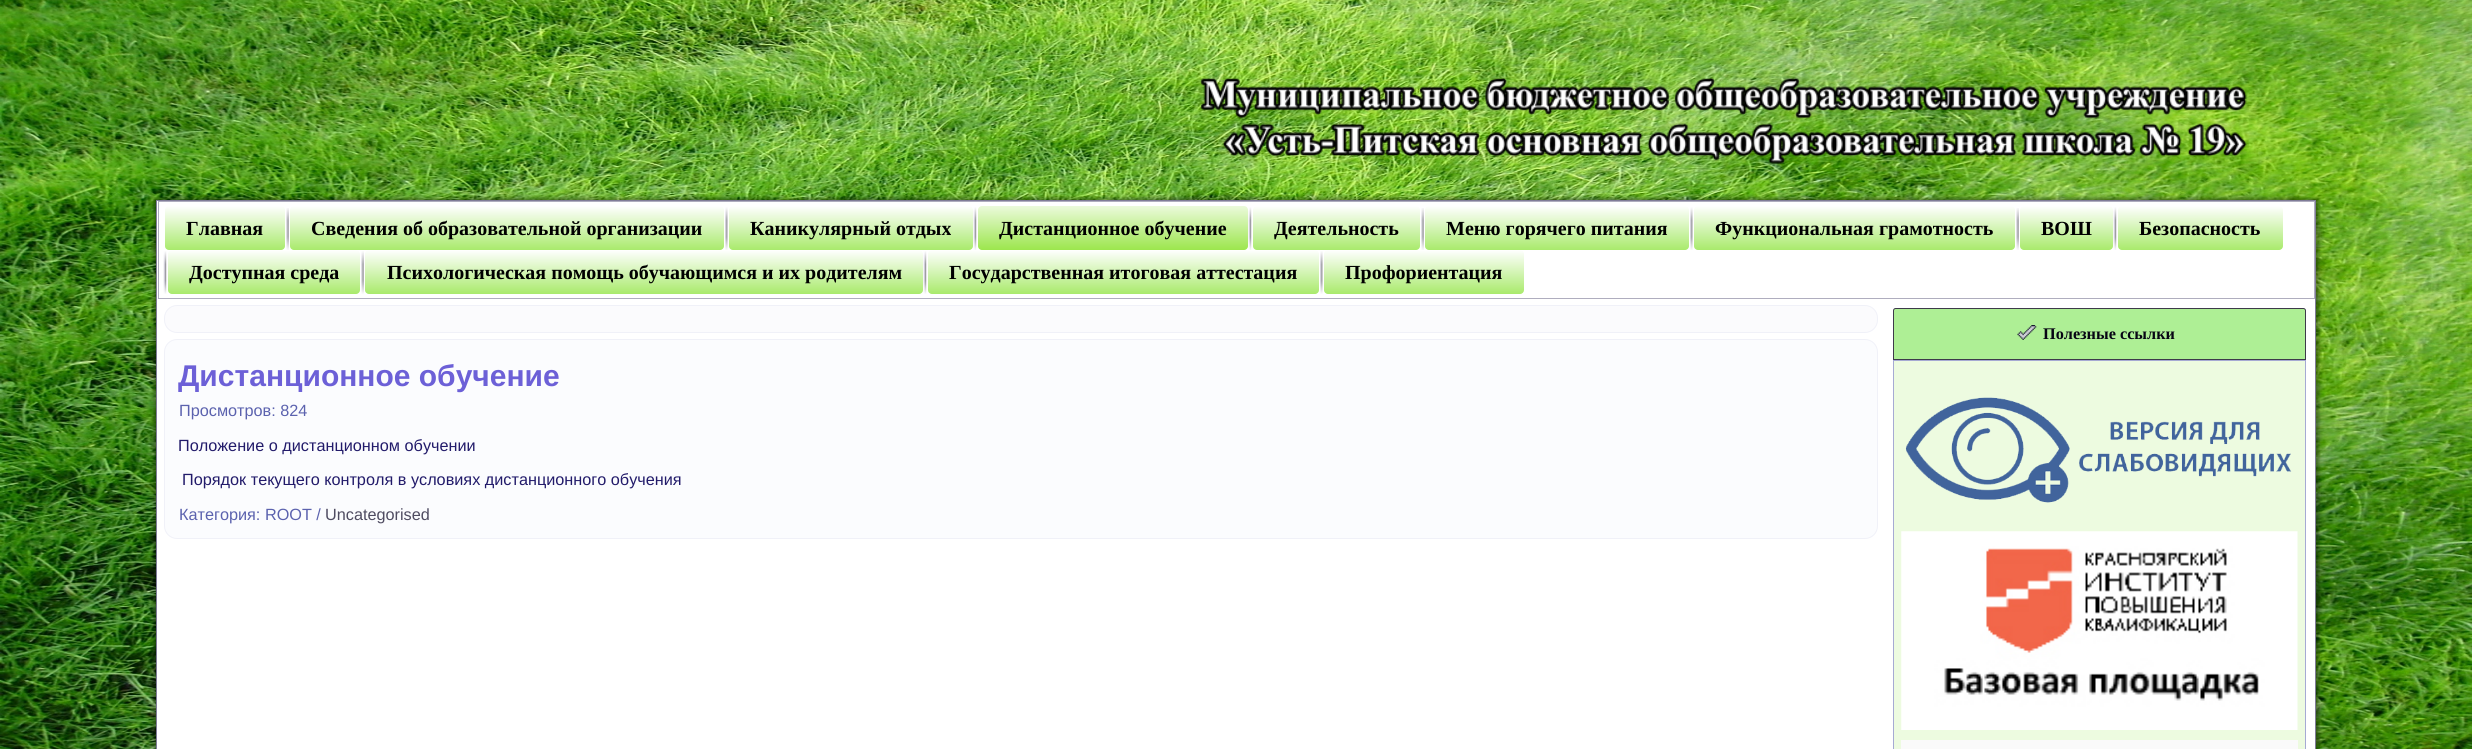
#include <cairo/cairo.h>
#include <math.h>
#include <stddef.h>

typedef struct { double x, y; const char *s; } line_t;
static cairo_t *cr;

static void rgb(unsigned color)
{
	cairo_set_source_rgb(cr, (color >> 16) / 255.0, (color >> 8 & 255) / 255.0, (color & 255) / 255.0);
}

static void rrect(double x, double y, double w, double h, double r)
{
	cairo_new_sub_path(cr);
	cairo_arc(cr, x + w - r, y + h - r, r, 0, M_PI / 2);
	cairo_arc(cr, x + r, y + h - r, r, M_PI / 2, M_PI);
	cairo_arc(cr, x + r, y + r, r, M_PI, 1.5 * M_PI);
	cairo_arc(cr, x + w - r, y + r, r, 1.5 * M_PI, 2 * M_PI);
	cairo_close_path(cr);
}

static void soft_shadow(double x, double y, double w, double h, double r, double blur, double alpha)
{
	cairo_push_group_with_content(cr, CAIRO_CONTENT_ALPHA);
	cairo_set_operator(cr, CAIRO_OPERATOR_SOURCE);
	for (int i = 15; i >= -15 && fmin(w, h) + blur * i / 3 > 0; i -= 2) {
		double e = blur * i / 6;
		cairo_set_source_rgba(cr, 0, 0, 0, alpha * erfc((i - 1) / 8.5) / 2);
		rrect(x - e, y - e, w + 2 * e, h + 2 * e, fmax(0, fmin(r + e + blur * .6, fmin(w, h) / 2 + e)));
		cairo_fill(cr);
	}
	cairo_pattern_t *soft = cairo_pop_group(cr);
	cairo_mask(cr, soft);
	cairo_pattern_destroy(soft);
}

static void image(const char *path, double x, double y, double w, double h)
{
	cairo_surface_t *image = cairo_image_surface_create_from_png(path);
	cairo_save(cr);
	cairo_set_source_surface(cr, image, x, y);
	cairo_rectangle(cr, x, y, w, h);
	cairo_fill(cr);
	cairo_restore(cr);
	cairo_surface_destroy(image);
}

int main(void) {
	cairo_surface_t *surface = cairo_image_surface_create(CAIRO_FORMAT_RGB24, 2472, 749);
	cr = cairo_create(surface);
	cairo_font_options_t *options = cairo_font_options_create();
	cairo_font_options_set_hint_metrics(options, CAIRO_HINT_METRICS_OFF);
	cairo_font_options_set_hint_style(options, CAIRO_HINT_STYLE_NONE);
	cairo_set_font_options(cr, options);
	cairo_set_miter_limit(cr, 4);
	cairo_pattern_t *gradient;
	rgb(0xffffff);
	cairo_paint(cr);
	image("img/1.png", 0, 0, 2472, 749);
	image("img/2.png", 1200, 77, 1047, 87);
	rgb(0x000000);
	soft_shadow(154, 198, 2165, 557, 0, 2, 0.4);
	rgb(0xffffff);
	cairo_rectangle(cr, 156.5, 200.5, 2159, 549);
	cairo_fill_preserve(cr);
	rgb(0x807c98);
	cairo_set_line_width(cr, 1);
	cairo_stroke(cr);
	cairo_rectangle(cr, 158.5, 201.5, 2156, 97);
	rgb(0xafadbe);
	cairo_stroke(cr);
	gradient = cairo_pattern_create_linear(225, 206, 225, 250);
	cairo_pattern_add_color_stop_rgba(gradient, 0, 1, 1, 1, 1);
	cairo_pattern_add_color_stop_rgba(gradient, 1, 0.663, 0.918, 0.424, 1);
	cairo_set_source(cr, gradient);
	cairo_pattern_destroy(gradient);
	rrect(165, 206, 120, 44, 4);
	cairo_fill(cr);
	image("img/3.png", 286, 208, 3, 42);
	gradient = cairo_pattern_create_linear(507, 206, 507, 250);
	cairo_pattern_add_color_stop_rgba(gradient, 0, 1, 1, 1, 1);
	cairo_pattern_add_color_stop_rgba(gradient, 1, 0.663, 0.918, 0.424, 1);
	cairo_set_source(cr, gradient);
	cairo_pattern_destroy(gradient);
	rrect(290, 206, 434, 44, 4);
	cairo_fill(cr);
	image("img/4.png", 725, 207, 3, 43);
	gradient = cairo_pattern_create_linear(851, 206, 851, 250);
	cairo_pattern_add_color_stop_rgba(gradient, 0, 1, 1, 1, 1);
	cairo_pattern_add_color_stop_rgba(gradient, 1, 0.663, 0.918, 0.424, 1);
	cairo_set_source(cr, gradient);
	cairo_pattern_destroy(gradient);
	rrect(729, 206, 244, 44, 4);
	cairo_fill(cr);
	image("img/5.png", 973, 207, 4, 43);
	gradient = cairo_pattern_create_linear(1113, 206, 1113, 250);
	cairo_pattern_add_color_stop_rgba(gradient, 0, 0.922, 0.98, 0.859, 1);
	cairo_pattern_add_color_stop_rgba(gradient, 1, 0.612, 0.902, 0.302, 1);
	cairo_set_source(cr, gradient);
	cairo_pattern_destroy(gradient);
	rrect(978, 206, 270, 44, 4);
	cairo_fill(cr);
	image("img/5.png", 1248, 207, 4, 43);
	gradient = cairo_pattern_create_linear(1336, 206, 1336, 250);
	cairo_pattern_add_color_stop_rgba(gradient, 0, 1, 1, 1, 1);
	cairo_pattern_add_color_stop_rgba(gradient, 1, 0.663, 0.918, 0.424, 1);
	cairo_set_source(cr, gradient);
	cairo_pattern_destroy(gradient);
	rrect(1253, 206, 167, 44, 4);
	cairo_fill(cr);
	image("img/3.png", 1421, 208, 3, 42);
	gradient = cairo_pattern_create_linear(1557, 206, 1557, 250);
	cairo_pattern_add_color_stop_rgba(gradient, 0, 1, 1, 1, 1);
	cairo_pattern_add_color_stop_rgba(gradient, 1, 0.663, 0.918, 0.424, 1);
	cairo_set_source(cr, gradient);
	cairo_pattern_destroy(gradient);
	rrect(1425, 206, 264, 44, 4);
	cairo_fill(cr);
	image("img/4.png", 1690, 207, 3, 43);
	gradient = cairo_pattern_create_linear(1854, 206, 1854, 250);
	cairo_pattern_add_color_stop_rgba(gradient, 0, 1, 1, 1, 1);
	cairo_pattern_add_color_stop_rgba(gradient, 1, 0.663, 0.918, 0.424, 1);
	cairo_set_source(cr, gradient);
	cairo_pattern_destroy(gradient);
	rrect(1694, 206, 321, 44, 4);
	cairo_fill(cr);
	image("img/3.png", 2016, 208, 3, 42);
	gradient = cairo_pattern_create_linear(2066, 206, 2066, 250);
	cairo_pattern_add_color_stop_rgba(gradient, 0, 1, 1, 1, 1);
	cairo_pattern_add_color_stop_rgba(gradient, 1, 0.663, 0.918, 0.424, 1);
	cairo_set_source(cr, gradient);
	cairo_pattern_destroy(gradient);
	rrect(2020, 206, 93, 44, 4);
	cairo_fill(cr);
	image("img/5.png", 2113, 207, 4, 43);
	gradient = cairo_pattern_create_linear(2200, 206, 2200, 250);
	cairo_pattern_add_color_stop_rgba(gradient, 0, 1, 1, 1, 1);
	cairo_pattern_add_color_stop_rgba(gradient, 1, 0.663, 0.918, 0.424, 1);
	cairo_set_source(cr, gradient);
	cairo_pattern_destroy(gradient);
	rrect(2118, 206, 165, 44, 4);
	cairo_fill(cr);
	image("img/6.png", 163, 251, 4, 43);
	gradient = cairo_pattern_create_linear(264, 250, 264, 294);
	cairo_pattern_add_color_stop_rgba(gradient, 0, 1, 1, 1, 1);
	cairo_pattern_add_color_stop_rgba(gradient, 1, 0.663, 0.918, 0.424, 1);
	cairo_set_source(cr, gradient);
	cairo_pattern_destroy(gradient);
	rrect(168, 250, 192, 44, 4);
	cairo_fill(cr);
	image("img/7.png", 361, 251, 3, 43);
	gradient = cairo_pattern_create_linear(644, 250, 644, 294);
	cairo_pattern_add_color_stop_rgba(gradient, 0, 1, 1, 1, 1);
	cairo_pattern_add_color_stop_rgba(gradient, 1, 0.663, 0.918, 0.424, 1);
	cairo_set_source(cr, gradient);
	cairo_pattern_destroy(gradient);
	rrect(365, 250, 558, 44, 4);
	cairo_fill(cr);
	image("img/6.png", 923, 251, 4, 43);
	gradient = cairo_pattern_create_linear(1123, 250, 1123, 294);
	cairo_pattern_add_color_stop_rgba(gradient, 0, 1, 1, 1, 1);
	cairo_pattern_add_color_stop_rgba(gradient, 1, 0.663, 0.918, 0.424, 1);
	cairo_set_source(cr, gradient);
	cairo_pattern_destroy(gradient);
	rrect(928, 250, 391, 44, 4);
	cairo_fill(cr);
	image("img/8.png", 1320, 251, 3, 43);
	gradient = cairo_pattern_create_linear(1424, 250, 1424, 294);
	cairo_pattern_add_color_stop_rgba(gradient, 0, 1, 1, 1, 1);
	cairo_pattern_add_color_stop_rgba(gradient, 1, 0.663, 0.918, 0.424, 1);
	cairo_set_source(cr, gradient);
	cairo_pattern_destroy(gradient);
	rrect(1324, 250, 200, 44, 4);
	cairo_fill(cr);
	rgb(0xaeef95);
	cairo_new_path(cr);
	cairo_move_to(cr, 1895.5, 308.5);
	cairo_line_to(cr, 2303.5, 308.5);
	cairo_curve_to(cr, 2304.5, 308.5, 2305.5, 309.5, 2305.5, 310.5);
	cairo_line_to(cr, 2305.5, 359.5);
	cairo_line_to(cr, 1893.5, 359.5);
	cairo_line_to(cr, 1893.5, 310.5);
	cairo_curve_to(cr, 1893.5, 309.5, 1894.5, 308.5, 1895.5, 308.5);
	cairo_close_path(cr);
	cairo_fill_preserve(cr);
	rgb(0x3d3a4a);
	cairo_stroke(cr);
	image("img/9.png", 2017, 325, 20, 15);
	rgb(0xedfbe0);
	cairo_rectangle(cr, 1893.5, 360.5, 412, 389);
	cairo_fill_preserve(cr);
	rgb(0xa6aad3);
	cairo_stroke(cr);
	image("img/10.png", 1905, 397, 387, 106);
	image("img/11.png", 1901, 531, 397, 199);
	rgb(0xfafafa);
	cairo_rectangle(cr, 1901, 740, 397, 9);
	cairo_fill(cr);
	rgb(0xfbfbfd);
	rrect(164.5, 305.5, 1713, 27, 12.5);
	cairo_fill_preserve(cr);
	rgb(0xf0f1f8);
	cairo_stroke(cr);
	rgb(0xfbfcfe);
	rrect(164.5, 339.5, 1713, 199, 12.5);
	cairo_fill_preserve(cr);
	rgb(0xf0f1f8);
	cairo_stroke(cr);
	cairo_select_font_face(cr, "Liberation Serif", CAIRO_FONT_SLANT_NORMAL, CAIRO_FONT_WEIGHT_BOLD);
	cairo_set_font_size(cr, 20);
	rgb(0x000000);
	{
		static const line_t items[] = {
			{186, 235, "Главная"},
			{311, 235, "Сведения об образовательной организации"},
			{750, 235, "Каникулярный отдых"},
			{999, 235, "Дистанционное обучение"},
			{1274, 235, "Деятельность"},
			{1446, 235, "Меню горячего питания"},
			{1715, 235, "Функциональная грамотность"},
			{2041, 235, "ВОШ"},
			{2139, 235, "Безопасность"},
			{189, 279, "Доступная среда"},
			{387, 279, "Психологическая помощь обучающимся и их родителям"},
			{949, 279, "Государственная итоговая аттестация"},
			{1345, 279, "Профориентация"},
		};
		for (size_t i = 0; i < sizeof items / sizeof *items; i++) {
			cairo_move_to(cr, items[i].x, items[i].y);
			cairo_show_text(cr, items[i].s);
		}
	}
	cairo_set_font_size(cr, 16.25);
	rgb(0x070514);
	cairo_move_to(cr, 2043, 339);
	cairo_show_text(cr, "Полезные ссылки");
	cairo_select_font_face(cr, "Liberation Sans", CAIRO_FONT_SLANT_NORMAL, CAIRO_FONT_WEIGHT_BOLD);
	cairo_set_font_size(cr, 30);
	rgb(0x6c60d7);
	cairo_move_to(cr, 178, 386);
	cairo_show_text(cr, "Дистанционное обучение");
	cairo_select_font_face(cr, "Liberation Sans", CAIRO_FONT_SLANT_NORMAL, CAIRO_FONT_WEIGHT_NORMAL);
	cairo_set_font_size(cr, 16.25);
	rgb(0x5b62ae);
	cairo_move_to(cr, 179, 416);
	cairo_show_text(cr, "Просмотров: 824");
	rgb(0x221b6a);
	cairo_move_to(cr, 178, 451);
	cairo_show_text(cr, "Положение о дистанционном обучении");
	cairo_move_to(cr, 182, 485);
	cairo_show_text(cr, "Порядок текущего контроля в условиях дистанционного обучения");
	rgb(0x5b62ae);
	cairo_move_to(cr, 179, 520);
	cairo_show_text(cr, "Категория: ROOT /");
	rgb(0x4f4c61);
	cairo_move_to(cr, 325, 520);
	cairo_show_text(cr, "Uncategorised");
	cairo_surface_write_to_png(surface, "page.png");
	cairo_font_options_destroy(options);
	cairo_destroy(cr);
	cairo_surface_destroy(surface);
	return 0;
}
